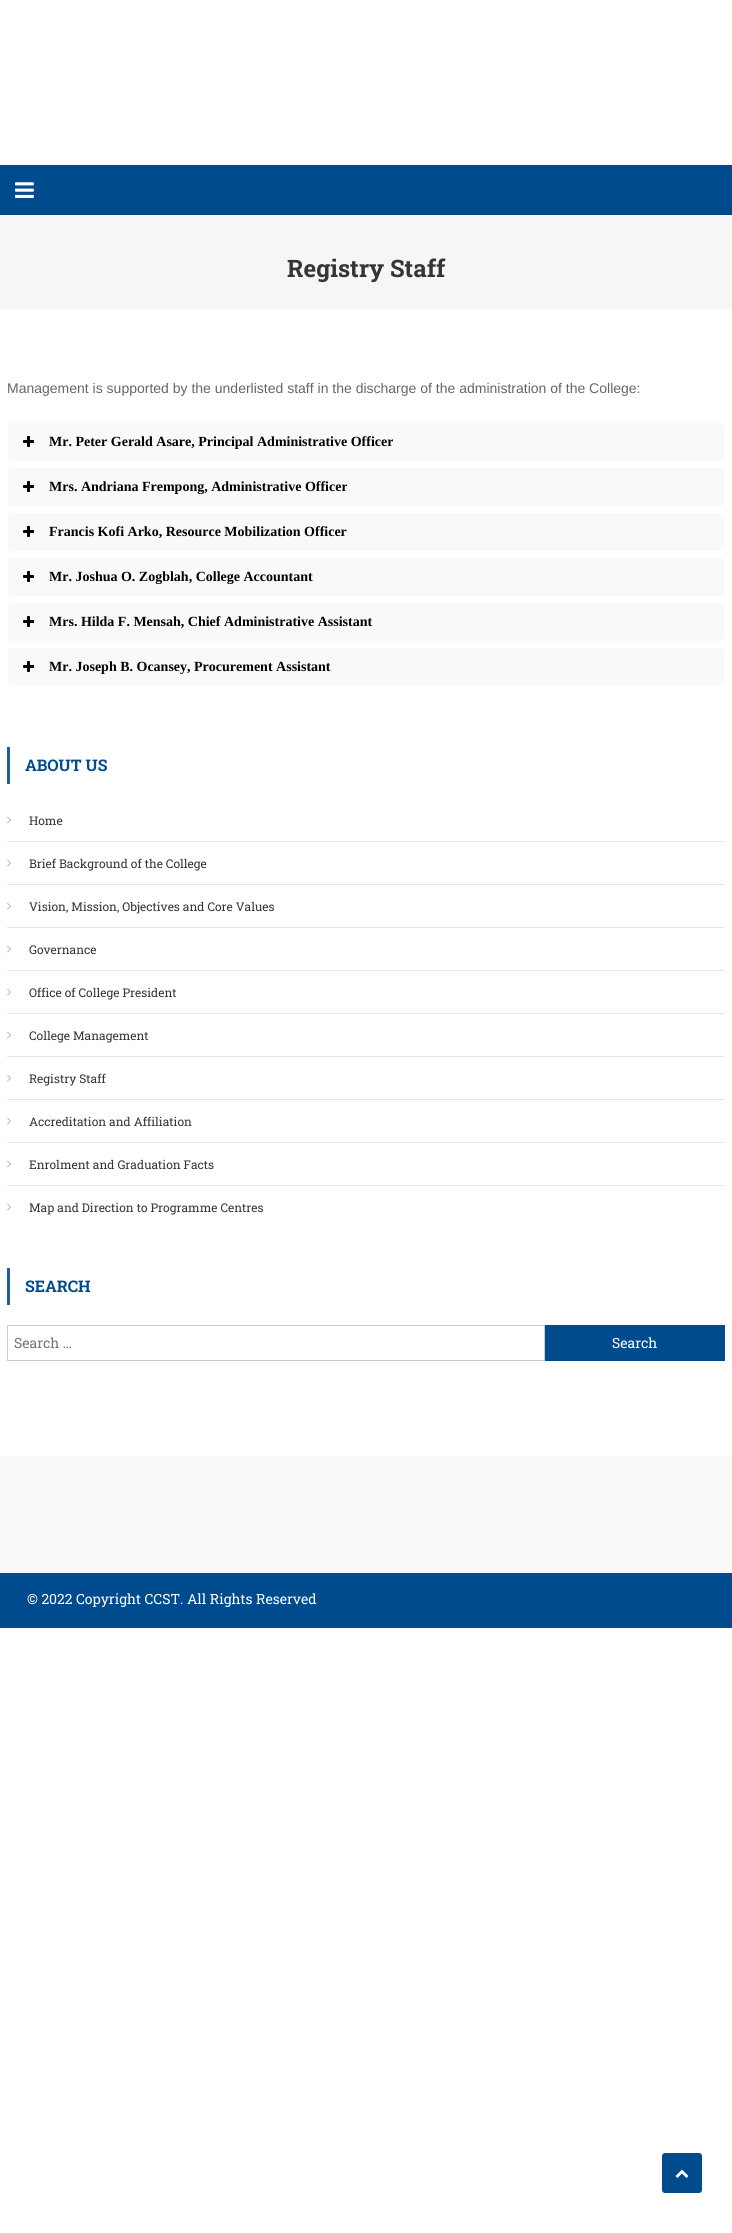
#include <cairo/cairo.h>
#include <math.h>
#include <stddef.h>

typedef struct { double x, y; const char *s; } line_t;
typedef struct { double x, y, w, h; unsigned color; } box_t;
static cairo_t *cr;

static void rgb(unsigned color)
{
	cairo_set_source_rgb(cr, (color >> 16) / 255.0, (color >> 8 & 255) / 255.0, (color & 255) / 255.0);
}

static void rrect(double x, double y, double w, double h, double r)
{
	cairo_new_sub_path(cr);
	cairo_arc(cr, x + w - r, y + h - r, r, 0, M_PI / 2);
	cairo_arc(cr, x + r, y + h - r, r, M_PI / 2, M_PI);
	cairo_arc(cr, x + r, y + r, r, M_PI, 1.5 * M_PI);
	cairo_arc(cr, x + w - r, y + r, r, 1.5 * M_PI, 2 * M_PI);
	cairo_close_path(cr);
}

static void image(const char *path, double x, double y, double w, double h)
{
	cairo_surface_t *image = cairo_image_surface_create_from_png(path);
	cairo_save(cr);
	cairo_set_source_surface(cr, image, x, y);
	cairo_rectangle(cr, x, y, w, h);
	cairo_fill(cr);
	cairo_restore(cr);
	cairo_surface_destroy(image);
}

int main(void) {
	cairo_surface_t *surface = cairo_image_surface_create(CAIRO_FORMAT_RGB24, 732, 2233);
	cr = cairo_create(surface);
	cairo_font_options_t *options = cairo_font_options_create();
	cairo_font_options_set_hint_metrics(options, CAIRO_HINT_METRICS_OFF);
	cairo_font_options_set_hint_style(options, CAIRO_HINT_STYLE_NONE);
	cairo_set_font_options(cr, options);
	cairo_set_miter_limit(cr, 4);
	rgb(0xffffff);
	cairo_paint(cr);
	rgb(0x004b8e);
	cairo_rectangle(cr, 0, 165, 732, 50);
	cairo_fill(cr);
	image("img/1.png", 15, 182, 19, 16);
	rgb(0xf6f6f6);
	cairo_rectangle(cr, 0, 215, 732, 94);
	cairo_fill(cr);
	rgb(0xf9f9f9);
	rrect(8, 423, 716, 38, 3);
	cairo_fill(cr);
	image("img/2.png", 23, 436, 11, 11);
	rrect(8, 468, 716, 38, 3);
	cairo_fill(cr);
	image("img/2.png", 23, 481, 11, 11);
	rrect(8, 513, 716, 38, 3);
	cairo_fill(cr);
	image("img/2.png", 23, 526, 11, 11);
	rrect(8, 558, 716, 38, 3);
	cairo_fill(cr);
	image("img/2.png", 23, 571, 11, 11);
	rrect(8, 603, 716, 38, 3);
	cairo_fill(cr);
	image("img/2.png", 23, 616, 11, 11);
	rrect(8, 648, 716, 38, 3);
	cairo_fill(cr);
	image("img/2.png", 23, 661, 11, 11);
	rgb(0x1c5da8);
	cairo_rectangle(cr, 7, 747, 3, 37);
	cairo_fill(cr);
	rgb(0xe6e6e6);
	cairo_rectangle(cr, 7, 841, 718, 1);
	cairo_fill(cr);
	image("img/3.png", 7, 816, 4, 8);
	cairo_rectangle(cr, 7, 884, 718, 1);
	cairo_fill(cr);
	image("img/3.png", 7, 859, 4, 8);
	cairo_rectangle(cr, 7, 927, 718, 1);
	cairo_fill(cr);
	image("img/3.png", 7, 902, 4, 8);
	cairo_rectangle(cr, 7, 970, 718, 1);
	cairo_fill(cr);
	image("img/3.png", 7, 945, 4, 8);
	cairo_rectangle(cr, 7, 1013, 718, 1);
	cairo_fill(cr);
	image("img/3.png", 7, 988, 4, 8);
	cairo_rectangle(cr, 7, 1056, 718, 1);
	cairo_fill(cr);
	image("img/3.png", 7, 1031, 4, 8);
	cairo_rectangle(cr, 7, 1099, 718, 1);
	cairo_fill(cr);
	image("img/3.png", 7, 1074, 4, 8);
	cairo_rectangle(cr, 7, 1142, 718, 1);
	cairo_fill(cr);
	image("img/3.png", 7, 1117, 4, 8);
	cairo_rectangle(cr, 7, 1185, 718, 1);
	cairo_fill(cr);
	image("img/3.png", 7, 1160, 4, 8);
	image("img/3.png", 7, 1203, 4, 8);
	rgb(0x1c5da8);
	cairo_rectangle(cr, 7, 1268, 3, 37);
	cairo_fill(cr);
	cairo_rectangle(cr, 7.5, 1325.5, 537, 35);
	rgb(0xcccccc);
	cairo_set_line_width(cr, 1);
	cairo_stroke(cr);
	{
		static const box_t items[] = {
			{545, 1325, 180, 36, 0x004b8e},
			{0, 1456, 732, 117, 0xf9f9f9},
			{0, 1573, 732, 55, 0x004b8e},
		};
		for (size_t i = 0; i < sizeof items / sizeof *items; i++) {
			rgb(items[i].color);
			cairo_rectangle(cr, items[i].x, items[i].y, items[i].w, items[i].h);
			cairo_fill(cr);
		}
	}
	rrect(662, 2153, 40, 40, 3);
	cairo_fill(cr);
	image("img/4.png", 675, 2169, 14, 9);
	cairo_select_font_face(cr, "Roboto Slab", CAIRO_FONT_SLANT_NORMAL, CAIRO_FONT_WEIGHT_BOLD);
	cairo_set_font_size(cr, 24);
	rgb(0x353535);
	cairo_move_to(cr, 287, 277);
	cairo_show_text(cr, "Registry Staff");
	cairo_select_font_face(cr, "Liberation Sans", CAIRO_FONT_SLANT_NORMAL, CAIRO_FONT_WEIGHT_NORMAL);
	cairo_set_font_size(cr, 14);
	rgb(0x666666);
	cairo_move_to(cr, 7, 393);
	cairo_show_text(cr, "Management is supported by the underlisted staff in the discharge of the administration of the College:");
	cairo_select_font_face(cr, "Liberation Serif", CAIRO_FONT_SLANT_NORMAL, CAIRO_FONT_WEIGHT_BOLD);
	rgb(0x000000);
	{
		static const line_t items[] = {
			{49, 446, "Mr. Peter Gerald Asare, Principal Administrative Officer"},
			{49, 491, "Mrs. Andriana Frempong, Administrative Officer"},
			{49, 536, "Francis Kofi Arko, Resource Mobilization Officer"},
			{49, 581, "Mr. Joshua O. Zogblah, College Accountant"},
			{49, 626, "Mrs. Hilda F. Mensah, Chief Administrative Assistant"},
			{49, 671, "Mr. Joseph B. Ocansey, Procurement Assistant"},
		};
		for (size_t i = 0; i < sizeof items / sizeof *items; i++) {
			cairo_move_to(cr, items[i].x, items[i].y);
			cairo_show_text(cr, items[i].s);
		}
	}
	cairo_select_font_face(cr, "Roboto Slab", CAIRO_FONT_SLANT_NORMAL, CAIRO_FONT_WEIGHT_BOLD);
	cairo_set_font_size(cr, 16);
	rgb(0x004b8e);
	cairo_move_to(cr, 25, 771);
	cairo_show_text(cr, "ABOUT US");
	cairo_select_font_face(cr, "Roboto Slab", CAIRO_FONT_SLANT_NORMAL, CAIRO_FONT_WEIGHT_NORMAL);
	cairo_set_font_size(cr, 12);
	rgb(0x353535);
	{
		static const line_t items[] = {
			{29, 825, "Home"},
			{29, 868, "Brief Background of the College"},
			{29, 911, "Vision, Mission, Objectives and Core Values"},
			{29, 954, "Governance"},
			{29, 997, "Office of College President"},
			{29, 1040, "College Management"},
			{29, 1083, "Registry Staff"},
			{29, 1126, "Accreditation and Affiliation"},
			{29, 1169, "Enrolment and Graduation Facts"},
			{29, 1212, "Map and Direction to Programme Centres"},
		};
		for (size_t i = 0; i < sizeof items / sizeof *items; i++) {
			cairo_move_to(cr, items[i].x, items[i].y);
			cairo_show_text(cr, items[i].s);
		}
	}
	cairo_select_font_face(cr, "Roboto Slab", CAIRO_FONT_SLANT_NORMAL, CAIRO_FONT_WEIGHT_BOLD);
	cairo_set_font_size(cr, 16);
	rgb(0x004b8e);
	cairo_move_to(cr, 25, 1292);
	cairo_show_text(cr, "SEARCH");
	cairo_select_font_face(cr, "Roboto Slab", CAIRO_FONT_SLANT_NORMAL, CAIRO_FONT_WEIGHT_NORMAL);
	cairo_set_font_size(cr, 14);
	rgb(0x757575);
	cairo_move_to(cr, 14, 1348);
	cairo_show_text(cr, "Search …");
	rgb(0xffffff);
	cairo_move_to(cr, 612, 1348);
	cairo_show_text(cr, "Search");
	cairo_move_to(cr, 27, 1604);
	cairo_show_text(cr, "© 2022 Copyright CCST. All Rights Reserved");
	cairo_surface_write_to_png(surface, "page.png");
	cairo_font_options_destroy(options);
	cairo_destroy(cr);
	cairo_surface_destroy(surface);
	return 0;
}
